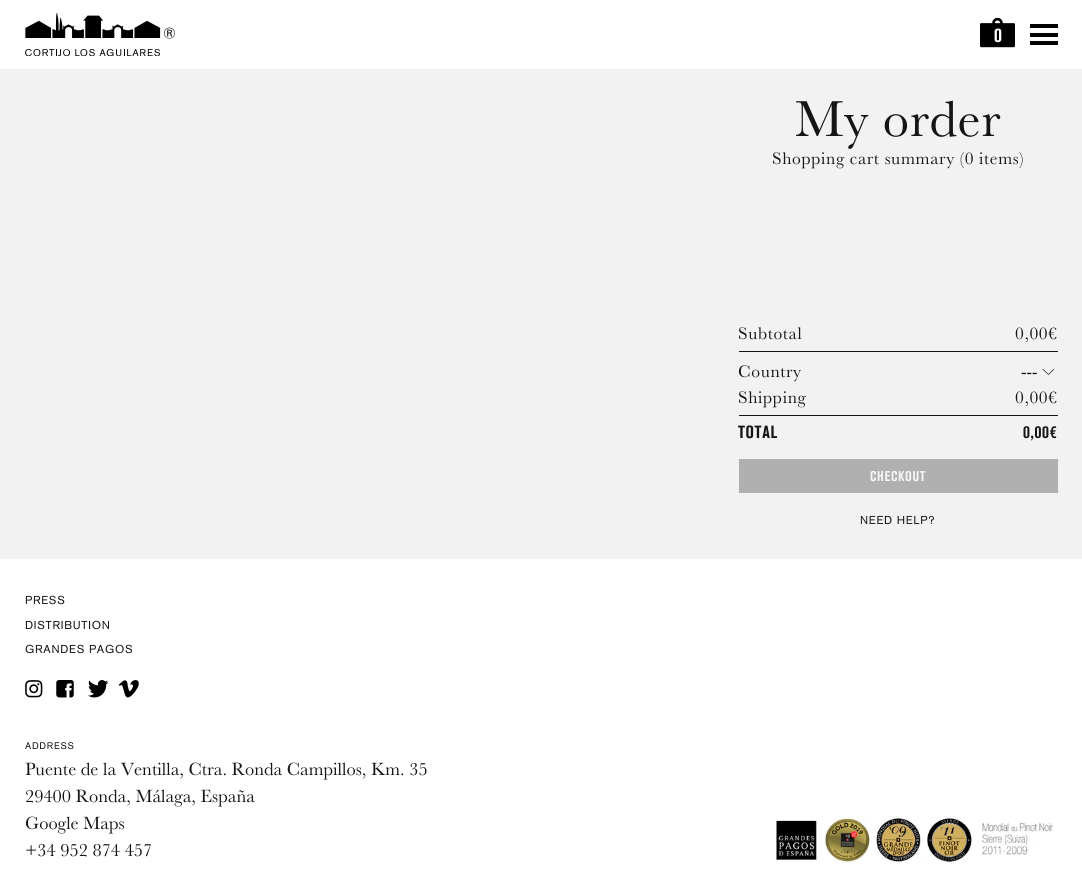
#include <cairo/cairo.h>
#include <math.h>
#include <stddef.h>

typedef struct { double x, y; const char *s; } line_t;
typedef struct { double x, y, w, h; unsigned color; } box_t;
static cairo_t *cr;

static void rgb(unsigned color)
{
	cairo_set_source_rgb(cr, (color >> 16) / 255.0, (color >> 8 & 255) / 255.0, (color & 255) / 255.0);
}

static void tracked(double x, double y, const char *s, double letter, double word)
{
	cairo_move_to(cr, x, y);
	while (*s) {
		char ch[5] = {0};
		int n = 0;
		do ch[n++] = *s++; while ((*s & 0xC0) == 0x80);
		cairo_show_text(cr, ch);
		cairo_rel_move_to(cr, letter + word * (*ch == ' '), 0);
	}
}

static void image(const char *path, double x, double y, double w, double h)
{
	cairo_surface_t *image = cairo_image_surface_create_from_png(path);
	cairo_save(cr);
	cairo_set_source_surface(cr, image, x, y);
	cairo_rectangle(cr, x, y, w, h);
	cairo_fill(cr);
	cairo_restore(cr);
	cairo_surface_destroy(image);
}

int main(void) {
	cairo_surface_t *surface = cairo_image_surface_create(CAIRO_FORMAT_RGB24, 1082, 873);
	cr = cairo_create(surface);
	cairo_font_options_t *options = cairo_font_options_create();
	cairo_font_options_set_hint_metrics(options, CAIRO_HINT_METRICS_OFF);
	cairo_font_options_set_hint_style(options, CAIRO_HINT_STYLE_NONE);
	cairo_set_font_options(cr, options);
	cairo_set_miter_limit(cr, 4);
	rgb(0xffffff);
	cairo_paint(cr);
	image("img/1.png", 25, 13, 150, 43);
	image("img/2.png", 980, 18, 35, 30);
	{
		static const box_t items[] = {
			{1030, 24, 28, 4, 0x000000},
			{1030, 33, 28, 4, 0x000000},
			{1030, 41, 28, 4, 0x000000},
			{0, 69, 1082, 490, 0xf2f2f2},
			{739, 351, 319, 1, 0x151515},
		};
		for (size_t i = 0; i < sizeof items / sizeof *items; i++) {
			rgb(items[i].color);
			cairo_rectangle(cr, items[i].x, items[i].y, items[i].w, items[i].h);
			cairo_fill(cr);
		}
	}
	cairo_new_path(cr);
	cairo_move_to(cr, 1054, 369);
	cairo_line_to(cr, 1048.5, 374.5);
	cairo_line_to(cr, 1042.5, 369);
	rgb(0x000000);
	cairo_set_line_width(cr, 0.6);
	cairo_stroke(cr);
	rgb(0x151515);
	cairo_rectangle(cr, 739, 415, 319, 1);
	cairo_fill(cr);
	rgb(0xb0b0b0);
	cairo_rectangle(cr, 739, 459, 319, 34);
	cairo_fill(cr);
	image("img/3.png", 25, 680, 18, 18);
	image("img/4.png", 56, 680, 18, 18);
	image("img/5.png", 88, 680, 21, 18);
	image("img/6.png", 119, 680, 20, 18);
	image("img/7.png", 776, 816, 277, 47);
	cairo_select_font_face(cr, "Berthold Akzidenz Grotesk", CAIRO_FONT_SLANT_NORMAL, CAIRO_FONT_WEIGHT_BOLD);
	cairo_set_font_size(cr, 20);
	rgb(0xffffff);
	tracked(994, 42, "0", 0.75, 0);
	cairo_select_font_face(cr, "Baskerville", CAIRO_FONT_SLANT_NORMAL, CAIRO_FONT_WEIGHT_NORMAL);
	cairo_set_font_size(cr, 52.5);
	rgb(0x151515);
	tracked(795, 136, "My order", 0.65, 0);
	cairo_set_font_size(cr, 17.5);
	{
		static const line_t items[] = {
			{772, 164, "Shopping cart summary (0 items)"},
			{738, 339, "Subtotal"},
			{1015, 339, "0,00€"},
			{738, 377, "Country"},
		};
		for (size_t i = 0; i < sizeof items / sizeof *items; i++) {
			tracked(items[i].x, items[i].y, items[i].s, 0.65, 0);
		}
	}
	rgb(0x000000);
	cairo_move_to(cr, 1021, 377);
	cairo_show_text(cr, "---");
	rgb(0x151515);
	tracked(738, 403, "Shipping", 0.65, 0);
	tracked(1015, 403, "0,00€", 0.65, 0);
	cairo_select_font_face(cr, "Berthold Akzidenz Grotesk", CAIRO_FONT_SLANT_NORMAL, CAIRO_FONT_WEIGHT_BOLD);
	tracked(738, 438, "TOTAL", 0.65, 0);
	tracked(1023, 438, "0,00€", 0.65, 0);
	cairo_set_font_size(cr, 14);
	rgb(0xf6f6f6);
	tracked(870, 481, "CHECKOUT", 0.65, 0);
	cairo_select_font_face(cr, "Berthold Akzidenz Grotesk", CAIRO_FONT_SLANT_NORMAL, CAIRO_FONT_WEIGHT_NORMAL);
	cairo_set_font_size(cr, 11.4);
	rgb(0x151515);
	{
		static const line_t items[] = {
			{860, 524, "NEED HELP?"},
			{25, 604, "PRESS"},
			{25, 629, "DISTRIBUTION"},
			{25, 653, "GRANDES PAGOS"},
		};
		for (size_t i = 0; i < sizeof items / sizeof *items; i++) {
			tracked(items[i].x, items[i].y, items[i].s, 0.75, 0);
		}
	}
	cairo_set_font_size(cr, 9.5);
	tracked(25, 749, "ADDRESS", 0.75, 0);
	cairo_select_font_face(cr, "Baskerville", CAIRO_FONT_SLANT_NORMAL, CAIRO_FONT_WEIGHT_NORMAL);
	cairo_set_font_size(cr, 18.4);
	{
		static const line_t items[] = {
			{25, 775, "Puente de la Ventilla, Ctra. Ronda Campillos, Km. 35"},
			{25, 802, "29400 Ronda, Málaga, España"},
			{25, 829, "Google Maps"},
			{25, 856, "+34 952 874 457"},
		};
		for (size_t i = 0; i < sizeof items / sizeof *items; i++) {
			cairo_move_to(cr, items[i].x, items[i].y);
			cairo_show_text(cr, items[i].s);
		}
	}
	cairo_surface_write_to_png(surface, "page.png");
	cairo_font_options_destroy(options);
	cairo_destroy(cr);
	cairo_surface_destroy(surface);
	return 0;
}
